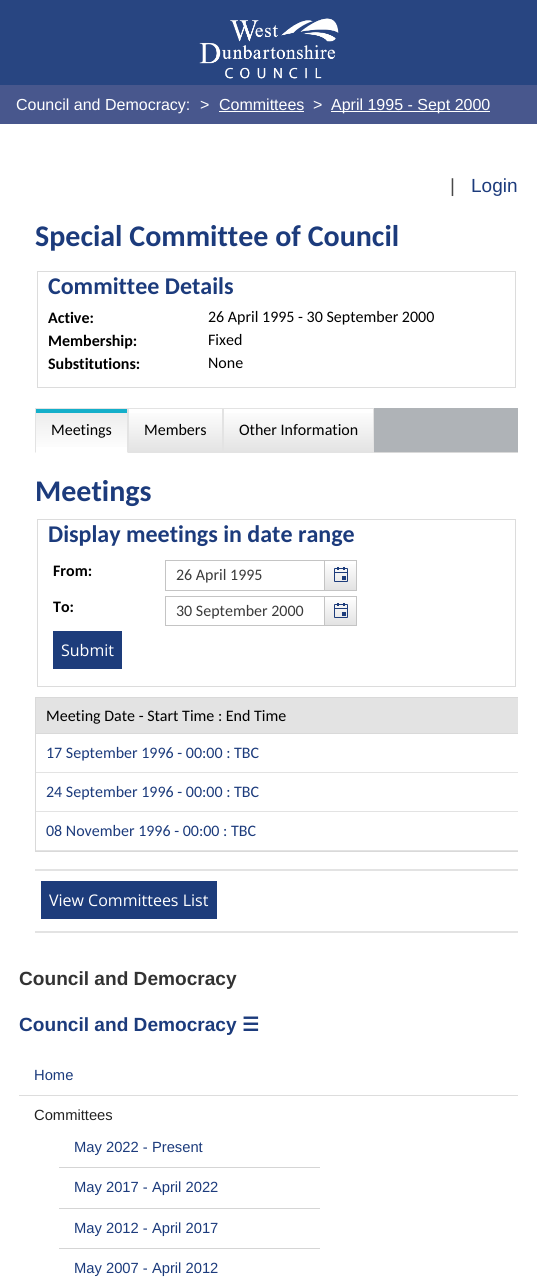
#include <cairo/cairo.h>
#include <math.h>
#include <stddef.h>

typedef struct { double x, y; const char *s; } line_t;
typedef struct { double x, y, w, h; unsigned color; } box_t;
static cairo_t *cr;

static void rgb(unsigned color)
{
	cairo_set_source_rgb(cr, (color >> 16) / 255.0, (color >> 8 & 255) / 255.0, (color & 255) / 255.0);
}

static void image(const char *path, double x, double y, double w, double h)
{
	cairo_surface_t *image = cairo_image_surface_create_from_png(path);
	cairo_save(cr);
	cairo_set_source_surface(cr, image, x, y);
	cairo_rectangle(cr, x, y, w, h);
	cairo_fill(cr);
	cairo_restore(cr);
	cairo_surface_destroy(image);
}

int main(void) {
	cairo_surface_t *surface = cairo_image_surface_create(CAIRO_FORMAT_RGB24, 537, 1283);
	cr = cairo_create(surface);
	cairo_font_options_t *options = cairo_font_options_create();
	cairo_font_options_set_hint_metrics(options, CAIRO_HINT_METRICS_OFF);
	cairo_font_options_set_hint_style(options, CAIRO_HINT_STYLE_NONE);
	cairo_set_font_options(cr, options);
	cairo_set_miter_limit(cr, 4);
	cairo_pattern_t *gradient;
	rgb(0x284581);
	cairo_paint(cr);
	image("img/1.png", 199, 18, 140, 61);
	{
		static const box_t items[] = {
			{0, 85, 537, 39, 0x48578d},
			{219, 111, 85, 1, 0xffffff},
			{331, 111, 159, 1, 0xffffff},
			{0, 124, 537, 1159, 0xffffff},
		};
		for (size_t i = 0; i < sizeof items / sizeof *items; i++) {
			rgb(items[i].color);
			cairo_rectangle(cr, items[i].x, items[i].y, items[i].w, items[i].h);
			cairo_fill(cr);
		}
	}
	cairo_rectangle(cr, 37.5, 271.5, 478, 116);
	rgb(0xdcdcdc);
	cairo_set_line_width(cr, 1);
	cairo_stroke(cr);
	rgb(0xafb3b7);
	cairo_rectangle(cr, 374, 408, 144, 44);
	cairo_fill(cr);
	rgb(0xd9d9d9);
	cairo_rectangle(cr, 374, 452, 144, 1);
	cairo_fill(cr);
	gradient = cairo_pattern_create_linear(82, 409, 82, 452);
	cairo_pattern_add_color_stop_rgba(gradient, 0, 0.922, 0.922, 0.922, 1);
	cairo_pattern_add_color_stop_rgba(gradient, 1, 1, 1, 1, 1);
	cairo_set_source(cr, gradient);
	cairo_pattern_destroy(gradient);
	cairo_rectangle(cr, 36, 413, 91, 34);
	cairo_fill(cr);
	rgb(0xe3e3e3);
	cairo_rectangle(cr, 35, 408, 93, 1);
	cairo_fill(cr);
	cairo_new_path(cr);
	cairo_move_to(cr, 128, 408);
	cairo_line_to(cr, 128, 453);
	cairo_line_to(cr, 127, 452);
	cairo_line_to(cr, 127, 409);
	cairo_close_path(cr);
	cairo_fill(cr);
	cairo_new_path(cr);
	cairo_move_to(cr, 35, 453);
	cairo_line_to(cr, 35, 408);
	cairo_line_to(cr, 36, 409);
	cairo_line_to(cr, 36, 452);
	cairo_close_path(cr);
	cairo_fill(cr);
	rgb(0x14afca);
	cairo_rectangle(cr, 36, 409, 91, 4);
	cairo_fill(cr);
	gradient = cairo_pattern_create_linear(176, 409, 176, 452);
	cairo_pattern_add_color_stop_rgba(gradient, 0, 1, 1, 1, 1);
	cairo_pattern_add_color_stop_rgba(gradient, 1, 0.89, 0.89, 0.89, 1);
	cairo_set_source(cr, gradient);
	cairo_pattern_destroy(gradient);
	cairo_rectangle(cr, 129, 413, 93, 39);
	cairo_fill(cr);
	cairo_rectangle(cr, 128.5, 408.5, 94, 44);
	rgb(0xe3e3e3);
	cairo_stroke(cr);
	gradient = cairo_pattern_create_linear(299, 409, 299, 452);
	cairo_pattern_add_color_stop_rgba(gradient, 0, 1, 1, 1, 1);
	cairo_pattern_add_color_stop_rgba(gradient, 1, 0.89, 0.89, 0.89, 1);
	cairo_set_source(cr, gradient);
	cairo_pattern_destroy(gradient);
	cairo_rectangle(cr, 224, 413, 149, 39);
	cairo_fill(cr);
	cairo_rectangle(cr, 223.5, 408.5, 150, 44);
	rgb(0xe3e3e3);
	cairo_stroke(cr);
	cairo_rectangle(cr, 37.5, 519.5, 478, 167);
	rgb(0xdcdcdc);
	cairo_stroke(cr);
	cairo_rectangle(cr, 165.5, 560.5, 191, 30);
	rgb(0xc4c4c4);
	cairo_stroke(cr);
	gradient = cairo_pattern_create_linear(341, 561, 341, 590);
	cairo_pattern_add_color_stop_rgba(gradient, 0, 1, 1, 1, 1);
	cairo_pattern_add_color_stop_rgba(gradient, 1, 0.89, 0.89, 0.89, 1);
	cairo_set_source(cr, gradient);
	cairo_pattern_destroy(gradient);
	cairo_rectangle(cr, 325, 564, 31, 26);
	cairo_fill(cr);
	rgb(0xc4c4c4);
	cairo_rectangle(cr, 324, 561, 1, 29);
	cairo_fill(cr);
	image("img/2.png", 334, 567, 14, 15);
	cairo_rectangle(cr, 165.5, 596.5, 191, 29);
	cairo_stroke(cr);
	gradient = cairo_pattern_create_linear(341, 597, 341, 625);
	cairo_pattern_add_color_stop_rgba(gradient, 0, 1, 1, 1, 1);
	cairo_pattern_add_color_stop_rgba(gradient, 1, 0.89, 0.89, 0.89, 1);
	cairo_set_source(cr, gradient);
	cairo_pattern_destroy(gradient);
	cairo_rectangle(cr, 325, 600, 31, 25);
	cairo_fill(cr);
	rgb(0xc4c4c4);
	cairo_rectangle(cr, 324, 597, 1, 28);
	cairo_fill(cr);
	image("img/2.png", 334, 603, 14, 15);
	rgb(0x1d3c7b);
	cairo_rectangle(cr, 53, 631, 69, 38);
	cairo_fill(cr);
	cairo_save(cr);
	cairo_rectangle(cr, 19, 124, 499, 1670);
	cairo_clip(cr);
	cairo_rectangle(cr, 35.5, 697.5, 484, 154);
	rgb(0xd9d9d9);
	cairo_stroke(cr);
	cairo_restore(cr);
	{
		static const box_t items[] = {
			{36, 698, 482, 35, 0xe3e3e3},
			{36, 733, 482, 1, 0xd9d9d9},
			{36, 772, 482, 1, 0xe3e3e3},
			{36, 811, 482, 1, 0xe3e3e3},
			{36, 850, 482, 1, 0xe3e3e3},
			{35, 869, 483, 2, 0xe3e3e3},
			{35, 931, 483, 2, 0xe3e3e3},
			{41, 881, 176, 38, 0x1d3c7b},
			{19, 1095, 499, 1, 0xdddddd},
			{59, 1167, 261, 1, 0xd5d5d5},
			{59, 1208, 261, 1, 0xd5d5d5},
			{59, 1248, 261, 1, 0xd5d5d5},
		};
		for (size_t i = 0; i < sizeof items / sizeof *items; i++) {
			rgb(items[i].color);
			cairo_rectangle(cr, items[i].x, items[i].y, items[i].w, items[i].h);
			cairo_fill(cr);
		}
	}
	cairo_select_font_face(cr, "Liberation Sans", CAIRO_FONT_SLANT_NORMAL, CAIRO_FONT_WEIGHT_NORMAL);
	cairo_set_font_size(cr, 16);
	rgb(0xffffff);
	{
		static const line_t items[] = {
			{16, 110, "Council and Democracy:"},
			{200, 110, ">"},
			{219, 110, "Committees"},
			{313, 110, ">"},
			{331, 110, "April 1995 - Sept 2000"},
		};
		for (size_t i = 0; i < sizeof items / sizeof *items; i++) {
			cairo_move_to(cr, items[i].x, items[i].y);
			cairo_show_text(cr, items[i].s);
		}
	}
	cairo_set_font_size(cr, 19);
	rgb(0x494949);
	cairo_move_to(cr, 450, 192);
	cairo_show_text(cr, "|");
	rgb(0x1c3b7c);
	cairo_move_to(cr, 471, 192);
	cairo_show_text(cr, "Login");
	cairo_select_font_face(cr, "Carlito", CAIRO_FONT_SLANT_NORMAL, CAIRO_FONT_WEIGHT_BOLD);
	cairo_set_font_size(cr, 30);
	cairo_move_to(cr, 35, 246);
	cairo_show_text(cr, "Special Committee of Council");
	cairo_set_font_size(cr, 24);
	cairo_move_to(cr, 48, 294);
	cairo_show_text(cr, "Committee Details");
	cairo_set_font_size(cr, 16);
	rgb(0x000000);
	cairo_move_to(cr, 48, 323);
	cairo_show_text(cr, "Active:");
	cairo_select_font_face(cr, "Carlito", CAIRO_FONT_SLANT_NORMAL, CAIRO_FONT_WEIGHT_NORMAL);
	cairo_move_to(cr, 208, 322);
	cairo_show_text(cr, "26 April 1995 - 30 September 2000");
	cairo_select_font_face(cr, "Carlito", CAIRO_FONT_SLANT_NORMAL, CAIRO_FONT_WEIGHT_BOLD);
	cairo_move_to(cr, 48, 346);
	cairo_show_text(cr, "Membership:");
	cairo_select_font_face(cr, "Carlito", CAIRO_FONT_SLANT_NORMAL, CAIRO_FONT_WEIGHT_NORMAL);
	cairo_move_to(cr, 208, 345);
	cairo_show_text(cr, "Fixed");
	cairo_select_font_face(cr, "Carlito", CAIRO_FONT_SLANT_NORMAL, CAIRO_FONT_WEIGHT_BOLD);
	cairo_move_to(cr, 48, 369);
	cairo_show_text(cr, "Substitutions:");
	cairo_select_font_face(cr, "Carlito", CAIRO_FONT_SLANT_NORMAL, CAIRO_FONT_WEIGHT_NORMAL);
	{
		static const line_t items[] = {
			{208, 368, "None"},
			{51, 435, "Meetings"},
			{144, 435, "Members"},
			{239, 435, "Other Information"},
		};
		for (size_t i = 0; i < sizeof items / sizeof *items; i++) {
			cairo_move_to(cr, items[i].x, items[i].y);
			cairo_show_text(cr, items[i].s);
		}
	}
	cairo_select_font_face(cr, "Carlito", CAIRO_FONT_SLANT_NORMAL, CAIRO_FONT_WEIGHT_BOLD);
	cairo_set_font_size(cr, 30);
	rgb(0x1c3b7c);
	cairo_move_to(cr, 35, 501);
	cairo_show_text(cr, "Meetings");
	cairo_set_font_size(cr, 24);
	cairo_move_to(cr, 48, 542);
	cairo_show_text(cr, "Display meetings in date range");
	cairo_set_font_size(cr, 16);
	rgb(0x000000);
	cairo_move_to(cr, 53, 576);
	cairo_show_text(cr, "From:");
	cairo_select_font_face(cr, "Carlito", CAIRO_FONT_SLANT_NORMAL, CAIRO_FONT_WEIGHT_NORMAL);
	rgb(0x3b3b3b);
	cairo_move_to(cr, 176, 580);
	cairo_show_text(cr, "26 April 1995");
	cairo_select_font_face(cr, "Carlito", CAIRO_FONT_SLANT_NORMAL, CAIRO_FONT_WEIGHT_BOLD);
	rgb(0x000000);
	cairo_move_to(cr, 53, 612);
	cairo_show_text(cr, "To:");
	cairo_select_font_face(cr, "Carlito", CAIRO_FONT_SLANT_NORMAL, CAIRO_FONT_WEIGHT_NORMAL);
	rgb(0x3b3b3b);
	cairo_move_to(cr, 176, 616);
	cairo_show_text(cr, "30 September 2000");
	cairo_select_font_face(cr, "Open Sans", CAIRO_FONT_SLANT_NORMAL, CAIRO_FONT_WEIGHT_NORMAL);
	rgb(0xffffff);
	cairo_move_to(cr, 61, 656);
	cairo_show_text(cr, "Submit");
	cairo_select_font_face(cr, "Carlito", CAIRO_FONT_SLANT_NORMAL, CAIRO_FONT_WEIGHT_NORMAL);
	rgb(0x000000);
	cairo_move_to(cr, 46, 721);
	cairo_show_text(cr, "Meeting Date - Start Time : End Time");
	rgb(0x1c3b7c);
	{
		static const line_t items[] = {
			{46, 758, "17 September 1996 - 00:00 : TBC"},
			{46, 797, "24 September 1996 - 00:00 : TBC"},
			{46, 836, "08 November 1996 - 00:00 : TBC"},
		};
		for (size_t i = 0; i < sizeof items / sizeof *items; i++) {
			cairo_move_to(cr, items[i].x, items[i].y);
			cairo_show_text(cr, items[i].s);
		}
	}
	cairo_select_font_face(cr, "Open Sans", CAIRO_FONT_SLANT_NORMAL, CAIRO_FONT_WEIGHT_NORMAL);
	rgb(0xffffff);
	cairo_move_to(cr, 49, 906);
	cairo_show_text(cr, "View Committees List");
	cairo_select_font_face(cr, "Liberation Sans", CAIRO_FONT_SLANT_NORMAL, CAIRO_FONT_WEIGHT_BOLD);
	cairo_set_font_size(cr, 19.1);
	rgb(0x333333);
	cairo_move_to(cr, 19, 985);
	cairo_show_text(cr, "Council and Democracy");
	rgb(0x1c3b7c);
	cairo_move_to(cr, 19, 1031);
	cairo_show_text(cr, "Council and Democracy");
	cairo_select_font_face(cr, "DejaVu Sans", CAIRO_FONT_SLANT_NORMAL, CAIRO_FONT_WEIGHT_BOLD);
	cairo_move_to(cr, 242, 1031);
	cairo_show_text(cr, "☰");
	cairo_select_font_face(cr, "Liberation Sans", CAIRO_FONT_SLANT_NORMAL, CAIRO_FONT_WEIGHT_NORMAL);
	cairo_set_font_size(cr, 14.75);
	cairo_move_to(cr, 34, 1080);
	cairo_show_text(cr, "Home");
	rgb(0x222222);
	cairo_move_to(cr, 34, 1120);
	cairo_show_text(cr, "Committees");
	rgb(0x1c3b7c);
	{
		static const line_t items[] = {
			{74, 1152, "May 2022 - Present"},
			{74, 1192, "May 2017 - April 2022"},
			{74, 1233, "May 2012 - April 2017"},
			{74, 1273, "May 2007 - April 2012"},
		};
		for (size_t i = 0; i < sizeof items / sizeof *items; i++) {
			cairo_move_to(cr, items[i].x, items[i].y);
			cairo_show_text(cr, items[i].s);
		}
	}
	cairo_surface_write_to_png(surface, "page.png");
	cairo_font_options_destroy(options);
	cairo_destroy(cr);
	cairo_surface_destroy(surface);
	return 0;
}
